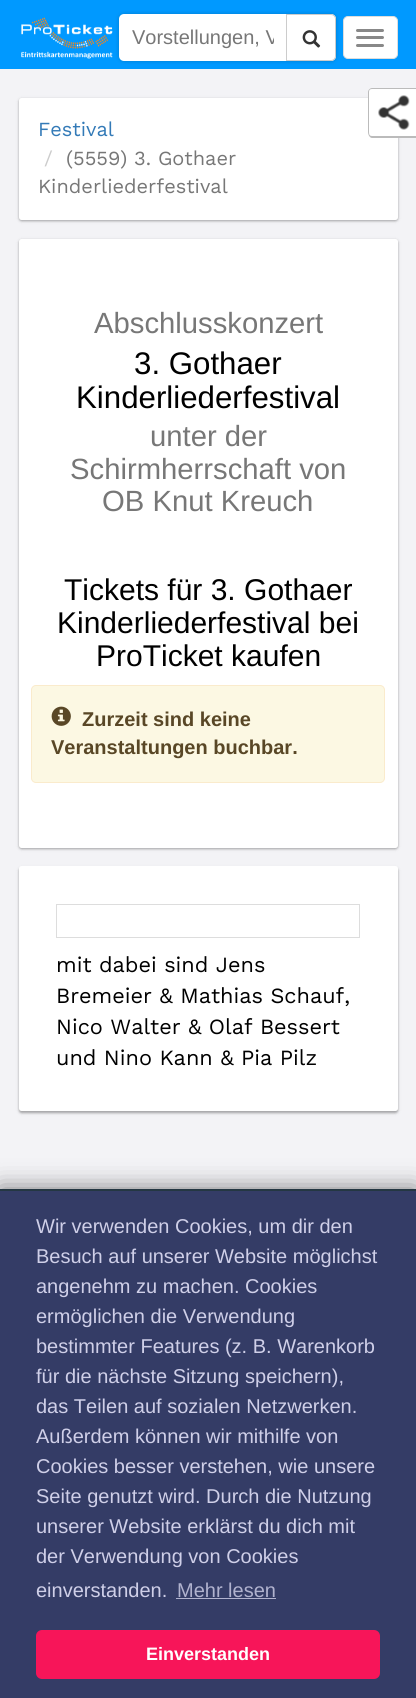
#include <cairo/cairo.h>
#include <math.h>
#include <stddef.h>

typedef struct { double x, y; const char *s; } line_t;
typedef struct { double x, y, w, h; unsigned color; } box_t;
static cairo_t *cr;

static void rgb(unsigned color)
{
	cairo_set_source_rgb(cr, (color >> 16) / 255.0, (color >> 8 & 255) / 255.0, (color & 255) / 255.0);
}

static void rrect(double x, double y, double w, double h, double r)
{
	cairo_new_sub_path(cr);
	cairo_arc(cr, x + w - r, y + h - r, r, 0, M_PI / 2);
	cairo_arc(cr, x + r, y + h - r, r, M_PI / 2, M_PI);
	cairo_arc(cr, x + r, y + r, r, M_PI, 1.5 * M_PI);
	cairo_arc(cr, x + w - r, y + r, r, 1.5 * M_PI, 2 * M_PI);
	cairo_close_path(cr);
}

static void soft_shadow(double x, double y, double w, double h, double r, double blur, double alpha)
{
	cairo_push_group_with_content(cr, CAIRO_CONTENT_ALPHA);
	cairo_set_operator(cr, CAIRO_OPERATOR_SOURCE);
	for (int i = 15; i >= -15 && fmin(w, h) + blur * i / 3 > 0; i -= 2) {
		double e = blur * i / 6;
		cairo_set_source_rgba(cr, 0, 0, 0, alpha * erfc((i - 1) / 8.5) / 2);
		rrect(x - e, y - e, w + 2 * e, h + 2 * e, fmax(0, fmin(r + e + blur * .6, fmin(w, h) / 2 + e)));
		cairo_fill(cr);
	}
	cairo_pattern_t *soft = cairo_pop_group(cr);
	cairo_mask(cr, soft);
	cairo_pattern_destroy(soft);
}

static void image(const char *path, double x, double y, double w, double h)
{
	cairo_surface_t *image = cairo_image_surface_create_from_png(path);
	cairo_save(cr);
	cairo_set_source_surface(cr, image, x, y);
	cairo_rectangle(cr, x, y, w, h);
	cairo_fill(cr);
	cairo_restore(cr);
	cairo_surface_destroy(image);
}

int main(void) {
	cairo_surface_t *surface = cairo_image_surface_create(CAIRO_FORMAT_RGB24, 416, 1698);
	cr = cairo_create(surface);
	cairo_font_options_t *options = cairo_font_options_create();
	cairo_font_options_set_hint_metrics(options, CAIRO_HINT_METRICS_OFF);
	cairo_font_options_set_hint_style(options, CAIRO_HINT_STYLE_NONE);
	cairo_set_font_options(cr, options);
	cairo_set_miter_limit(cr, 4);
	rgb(0xf3f3f6);
	cairo_paint(cr);
	rgb(0x0099ff);
	cairo_rectangle(cr, 0, 0, 416, 69);
	cairo_fill(cr);
	image("img/1.png", 21, 17, 92, 42);
	rgb(0x000000);
	soft_shadow(119, 14, 217, 47, 5, 2, 0.2);
	rgb(0xffffff);
	rrect(119, 14, 217, 47, 5);
	cairo_fill(cr);
	cairo_new_path(cr);
	cairo_move_to(cr, 286.5, 14.5);
	cairo_line_to(cr, 331, 14.5);
	cairo_curve_to(cr, 333.5, 14.5, 335.5, 16.5, 335.5, 19);
	cairo_line_to(cr, 335.5, 56);
	cairo_curve_to(cr, 335.5, 58.5, 333.5, 60.5, 331, 60.5);
	cairo_line_to(cr, 286.5, 60.5);
	cairo_close_path(cr);
	cairo_fill_preserve(cr);
	rgb(0xcccccc);
	cairo_set_line_width(cr, 1);
	cairo_stroke(cr);
	image("img/2.png", 302, 30, 19, 18);
	rgb(0xffffff);
	rrect(343.5, 16.5, 54, 42, 4.5);
	cairo_fill_preserve(cr);
	rgb(0xdddddd);
	cairo_stroke(cr);
	rgb(0x888888);
	rrect(356, 29, 28, 3, 1.5);
	cairo_fill(cr);
	rrect(356, 36, 28, 3, 1.5);
	cairo_fill(cr);
	rrect(356, 44, 28, 3, 1.5);
	cairo_fill(cr);
	rgb(0x000000);
	soft_shadow(19, 99, 379, 122, 2.5, 1, 0.24);
	soft_shadow(19, 99, 379, 122, 2.5, 2, 0.12);
	rgb(0xffffff);
	rrect(19, 98, 379, 122, 2.5);
	cairo_fill(cr);
	cairo_new_path(cr);
	cairo_move_to(cr, 373, 88);
	cairo_line_to(cr, 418, 88);
	cairo_line_to(cr, 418, 138);
	cairo_line_to(cr, 373, 138);
	cairo_curve_to(cr, 370, 138, 368, 136, 368, 133);
	cairo_line_to(cr, 368, 93);
	cairo_curve_to(cr, 368, 90, 370, 88, 373, 88);
	cairo_close_path(cr);
	cairo_fill(cr);
	image("img/3.png", 378, 95, 32, 35);
	rgb(0xbbbbbb);
	cairo_set_fill_rule(cr, CAIRO_FILL_RULE_EVEN_ODD);
	cairo_new_path(cr);
	cairo_move_to(cr, 372, 88);
	cairo_line_to(cr, 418, 88);
	cairo_line_to(cr, 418, 138);
	cairo_line_to(cr, 372, 138);
	cairo_curve_to(cr, 370, 138, 368, 135, 368, 132);
	cairo_line_to(cr, 368, 92);
	cairo_curve_to(cr, 368, 90, 370, 88, 372, 88);
	cairo_close_path(cr);
	cairo_move_to(cr, 372, 89);
	cairo_line_to(cr, 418, 89);
	cairo_line_to(cr, 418, 136);
	cairo_line_to(cr, 372, 136);
	cairo_curve_to(cr, 370, 136, 369, 135, 369, 132);
	cairo_line_to(cr, 369, 92);
	cairo_curve_to(cr, 369, 90, 370, 89, 372, 89);
	cairo_close_path(cr);
	cairo_fill(cr);
	rgb(0x000000);
	soft_shadow(19, 240, 379, 609, 2.5, 1, 0.24);
	soft_shadow(19, 240, 379, 609, 2.5, 2, 0.12);
	rgb(0xffffff);
	rrect(19, 239, 379, 609, 2.5);
	cairo_fill(cr);
	rgb(0xfcf8e3);
	rrect(31.5, 685.5, 353, 97, 4.5);
	cairo_fill_preserve(cr);
	rgb(0xfaebcc);
	cairo_stroke(cr);
	image("img/4.png", 51, 706, 20, 20);
	rgb(0x000000);
	soft_shadow(19, 868, 379, 245, 2.5, 1, 0.24);
	soft_shadow(19, 868, 379, 245, 2.5, 2, 0.12);
	rgb(0xffffff);
	rrect(19, 866, 379, 245, 2.5);
	cairo_fill(cr);
	cairo_rectangle(cr, 56.5, 904.5, 303, 33);
	rgb(0xdddddd);
	cairo_stroke(cr);
	rgb(0x000000);
	soft_shadow(0, 1189, 416, 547, 0, 12.5, 0.5);
	{
		static const box_t items[] = {
			{0, 1189, 416, 2, 0x243742},
			{0, 1191, 416, 507, 0x343c66},
			{176, 1598, 100, 1, 0xb0b2ce},
		};
		for (size_t i = 0; i < sizeof items / sizeof *items; i++) {
			rgb(items[i].color);
			cairo_rectangle(cr, items[i].x, items[i].y, items[i].w, items[i].h);
			cairo_fill(cr);
		}
	}
	rgb(0xf71559);
	rrect(36, 1630, 344, 49, 6);
	cairo_fill(cr);
	cairo_save(cr);
	cairo_set_fill_rule(cr, CAIRO_FILL_RULE_WINDING);
	cairo_rectangle(cr, 131, 26, 143, 23);
	cairo_clip(cr);
	cairo_select_font_face(cr, "Liberation Sans", CAIRO_FONT_SLANT_NORMAL, CAIRO_FONT_WEIGHT_NORMAL);
	cairo_set_font_size(cr, 20);
	rgb(0x777777);
	cairo_move_to(cr, 132, 44);
	cairo_show_text(cr, "Vorstellungen, V");
	cairo_restore(cr);
	cairo_select_font_face(cr, "Work Sans", CAIRO_FONT_SLANT_NORMAL, CAIRO_FONT_WEIGHT_NORMAL);
	cairo_set_font_size(cr, 20);
	rgb(0x337ab7);
	cairo_move_to(cr, 38, 136);
	cairo_show_text(cr, "Festival");
	rgb(0xcccccc);
	cairo_move_to(cr, 44, 165);
	cairo_show_text(cr, "/");
	rgb(0x777777);
	cairo_move_to(cr, 66, 165);
	cairo_show_text(cr, "(5559) 3. Gothaer");
	cairo_move_to(cr, 38, 193);
	cairo_show_text(cr, "Kinderliederfestival");
	cairo_select_font_face(cr, "Liberation Sans", CAIRO_FONT_SLANT_NORMAL, CAIRO_FONT_WEIGHT_NORMAL);
	cairo_set_font_size(cr, 29.25);
	cairo_move_to(cr, 94, 333);
	cairo_show_text(cr, "Abschlusskonzert");
	cairo_set_font_size(cr, 31.25);
	rgb(0x000000);
	cairo_move_to(cr, 134, 374);
	cairo_show_text(cr, "3. Gothaer");
	cairo_move_to(cr, 76, 408);
	cairo_show_text(cr, "Kinderliederfestival");
	cairo_set_font_size(cr, 29.25);
	rgb(0x777777);
	{
		static const line_t items[] = {
			{150, 446, "unter der"},
			{70, 479, "Schirmherrschaft von"},
			{102, 511, "OB Knut Kreuch"},
		};
		for (size_t i = 0; i < sizeof items / sizeof *items; i++) {
			cairo_move_to(cr, items[i].x, items[i].y);
			cairo_show_text(cr, items[i].s);
		}
	}
	cairo_set_font_size(cr, 30);
	rgb(0x000000);
	{
		static const line_t items[] = {
			{64, 600, "Tickets für 3. Gothaer"},
			{57, 633, "Kinderliederfestival bei"},
			{96, 666, "ProTicket kaufen"},
		};
		for (size_t i = 0; i < sizeof items / sizeof *items; i++) {
			cairo_move_to(cr, items[i].x, items[i].y);
			cairo_show_text(cr, items[i].s);
		}
	}
	cairo_select_font_face(cr, "Liberation Sans", CAIRO_FONT_SLANT_NORMAL, CAIRO_FONT_WEIGHT_BOLD);
	cairo_set_font_size(cr, 20);
	rgb(0x594726);
	cairo_move_to(cr, 82, 726);
	cairo_show_text(cr, "Zurzeit sind keine");
	cairo_move_to(cr, 51, 754);
	cairo_show_text(cr, "Veranstaltungen buchbar.");
	cairo_select_font_face(cr, "Work Sans", CAIRO_FONT_SLANT_NORMAL, CAIRO_FONT_WEIGHT_NORMAL);
	cairo_set_font_size(cr, 21.7);
	rgb(0x000000);
	{
		static const line_t items[] = {
			{56, 972, "mit dabei sind Jens"},
			{56, 1003, "Bremeier & Mathias Schauf,"},
			{56, 1034, "Nico Walter & Olaf Bessert"},
			{56, 1065, "und Nino Kann & Pia Pilz"},
		};
		for (size_t i = 0; i < sizeof items / sizeof *items; i++) {
			cairo_move_to(cr, items[i].x, items[i].y);
			cairo_show_text(cr, items[i].s);
		}
	}
	cairo_select_font_face(cr, "Liberation Sans", CAIRO_FONT_SLANT_NORMAL, CAIRO_FONT_WEIGHT_NORMAL);
	cairo_set_font_size(cr, 20);
	rgb(0xcfcfe8);
	{
		static const line_t items[] = {
			{36, 1233, "Wir verwenden Cookies, um dir den"},
			{36, 1263, "Besuch auf unserer Website möglichst"},
			{36, 1293, "angenehm zu machen. Cookies"},
			{36, 1323, "ermöglichen die Verwendung"},
			{36, 1353, "bestimmter Features (z. B. Warenkorb"},
			{36, 1383, "für die nächste Sitzung speichern),"},
			{36, 1413, "das Teilen auf sozialen Netzwerken."},
			{36, 1443, "Außerdem können wir mithilfe von"},
			{36, 1473, "Cookies besser verstehen, wie unsere"},
			{36, 1503, "Seite genutzt wird. Durch die Nutzung"},
			{36, 1533, "unserer Website erklärst du dich mit"},
			{36, 1563, "der Verwendung von Cookies"},
			{36, 1597, "einverstanden."},
		};
		for (size_t i = 0; i < sizeof items / sizeof *items; i++) {
			cairo_move_to(cr, items[i].x, items[i].y);
			cairo_show_text(cr, items[i].s);
		}
	}
	rgb(0xb0b2ce);
	cairo_move_to(cr, 177, 1597);
	cairo_show_text(cr, "Mehr lesen");
	cairo_select_font_face(cr, "Liberation Sans", CAIRO_FONT_SLANT_NORMAL, CAIRO_FONT_WEIGHT_BOLD);
	cairo_set_font_size(cr, 18);
	rgb(0xffffff);
	cairo_move_to(cr, 146, 1660);
	cairo_show_text(cr, "Einverstanden");
	cairo_surface_write_to_png(surface, "page.png");
	cairo_font_options_destroy(options);
	cairo_destroy(cr);
	cairo_surface_destroy(surface);
	return 0;
}
